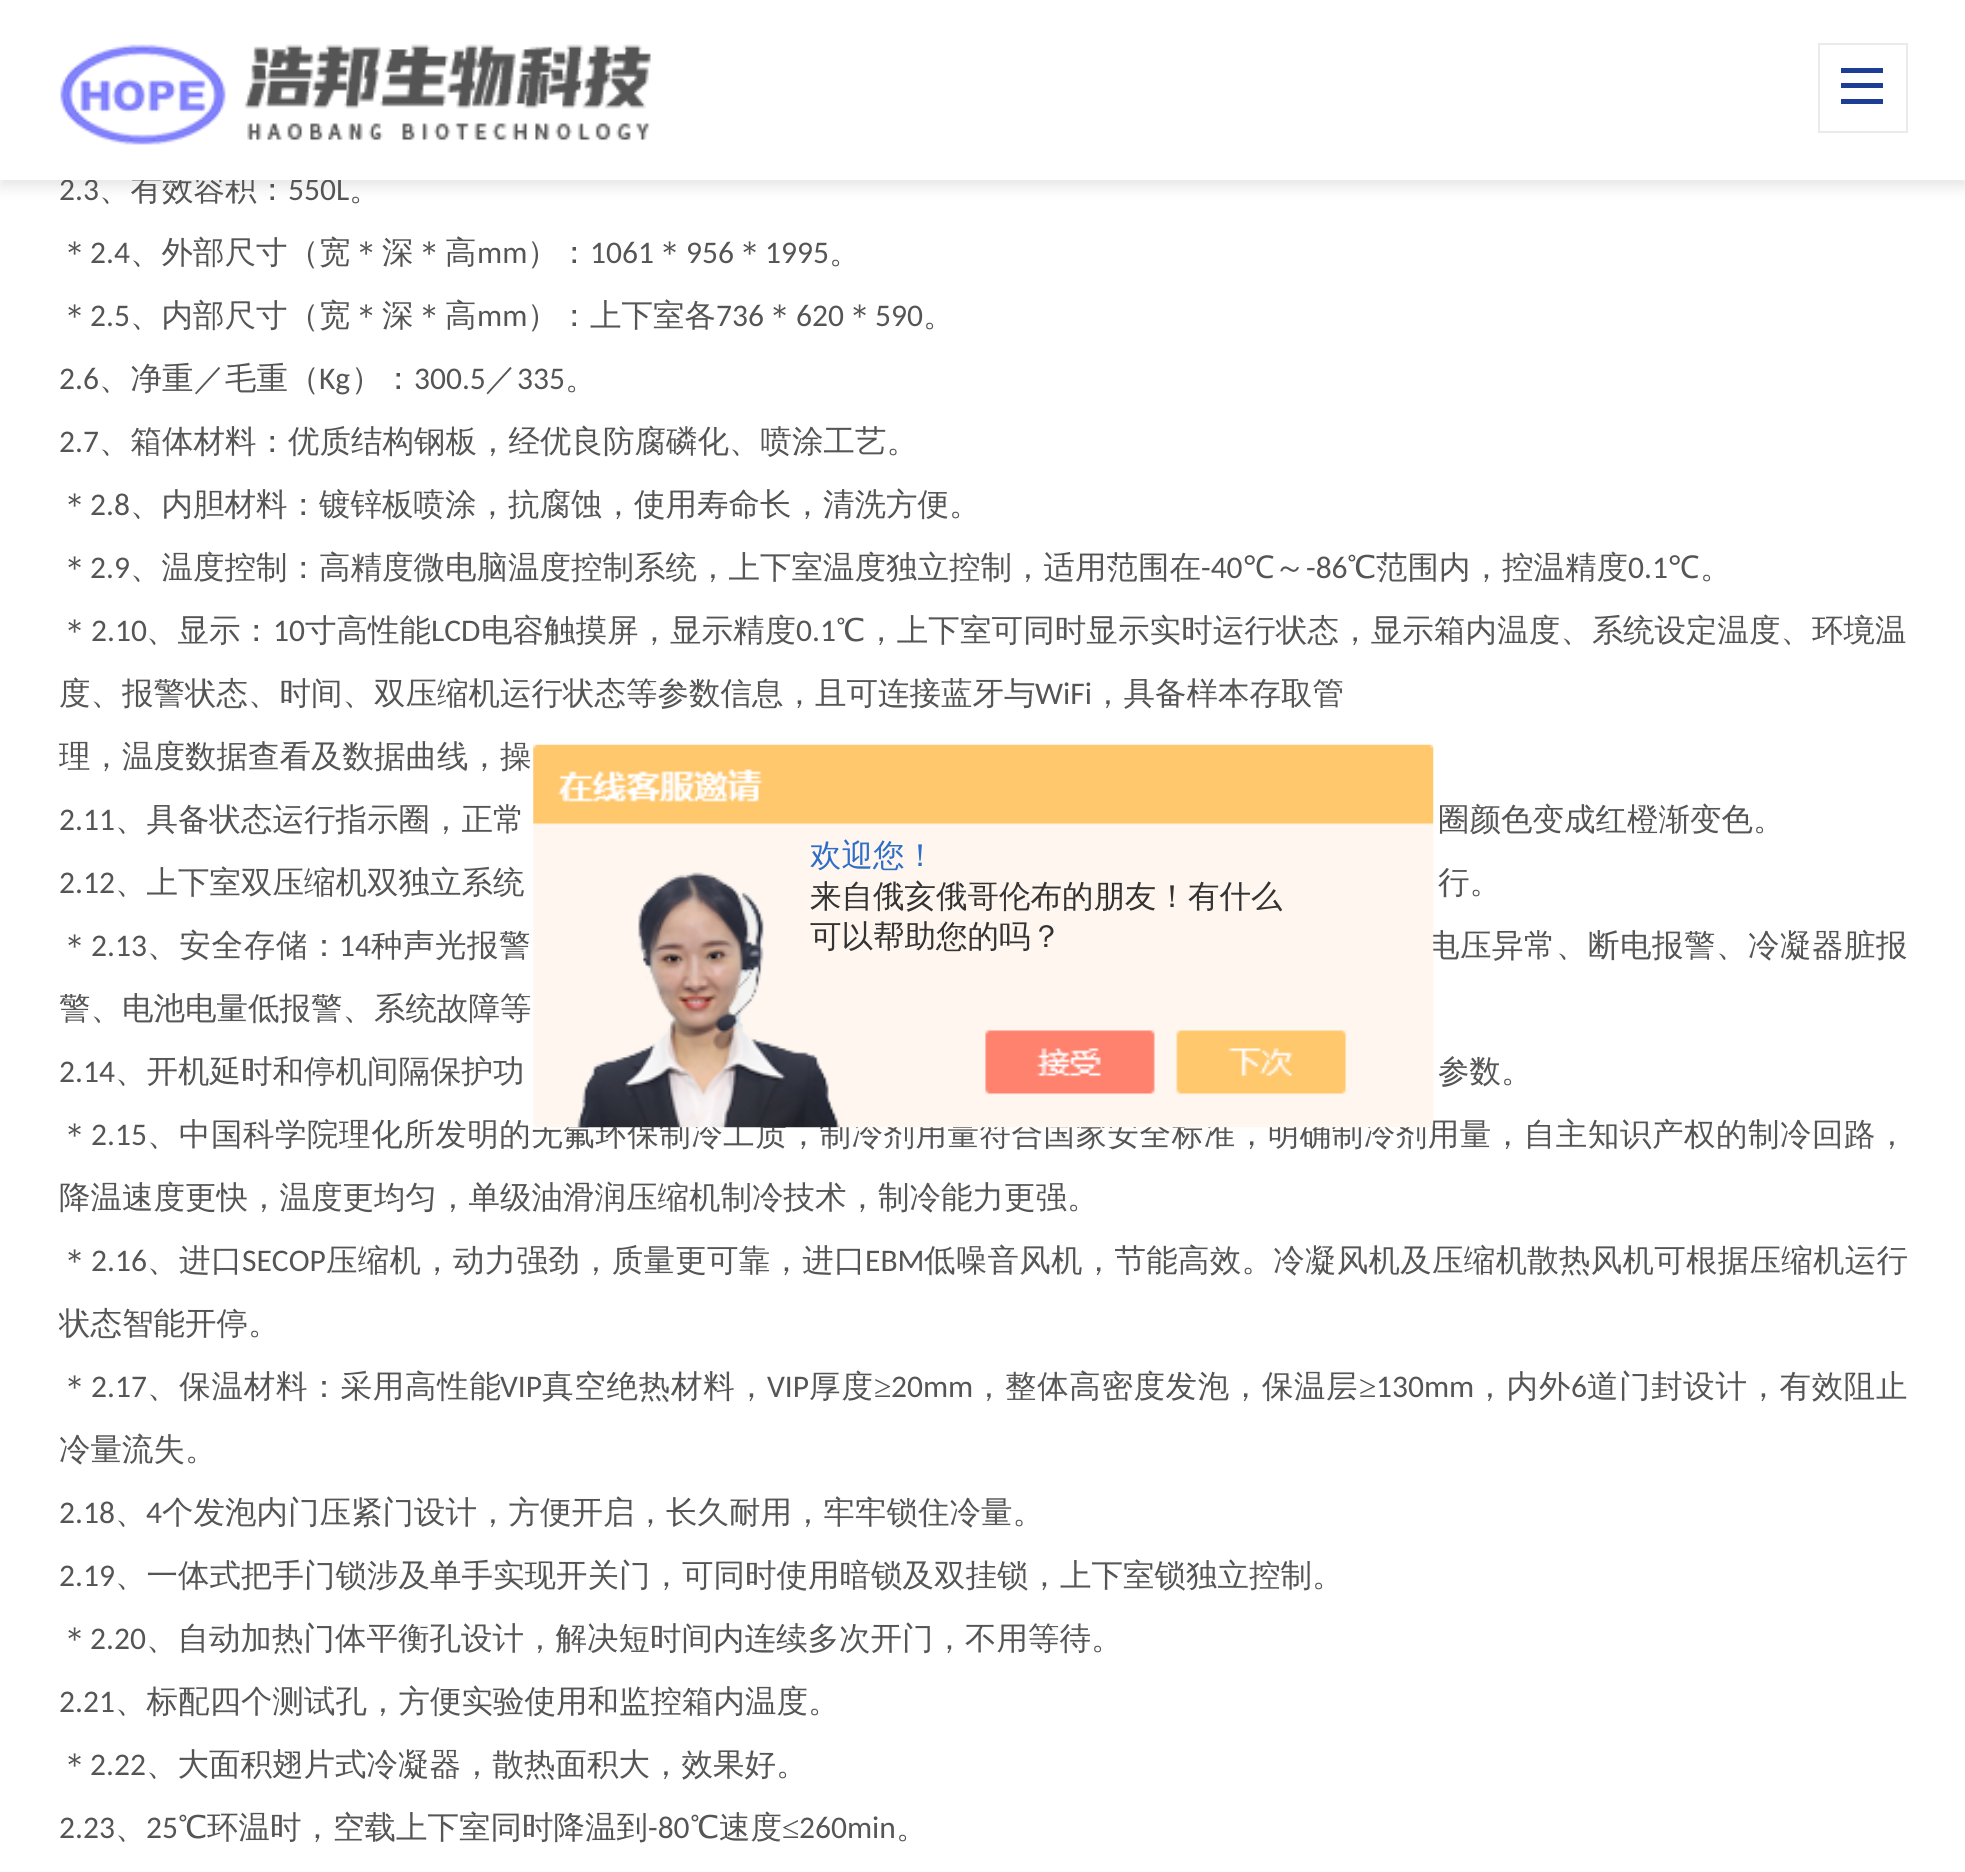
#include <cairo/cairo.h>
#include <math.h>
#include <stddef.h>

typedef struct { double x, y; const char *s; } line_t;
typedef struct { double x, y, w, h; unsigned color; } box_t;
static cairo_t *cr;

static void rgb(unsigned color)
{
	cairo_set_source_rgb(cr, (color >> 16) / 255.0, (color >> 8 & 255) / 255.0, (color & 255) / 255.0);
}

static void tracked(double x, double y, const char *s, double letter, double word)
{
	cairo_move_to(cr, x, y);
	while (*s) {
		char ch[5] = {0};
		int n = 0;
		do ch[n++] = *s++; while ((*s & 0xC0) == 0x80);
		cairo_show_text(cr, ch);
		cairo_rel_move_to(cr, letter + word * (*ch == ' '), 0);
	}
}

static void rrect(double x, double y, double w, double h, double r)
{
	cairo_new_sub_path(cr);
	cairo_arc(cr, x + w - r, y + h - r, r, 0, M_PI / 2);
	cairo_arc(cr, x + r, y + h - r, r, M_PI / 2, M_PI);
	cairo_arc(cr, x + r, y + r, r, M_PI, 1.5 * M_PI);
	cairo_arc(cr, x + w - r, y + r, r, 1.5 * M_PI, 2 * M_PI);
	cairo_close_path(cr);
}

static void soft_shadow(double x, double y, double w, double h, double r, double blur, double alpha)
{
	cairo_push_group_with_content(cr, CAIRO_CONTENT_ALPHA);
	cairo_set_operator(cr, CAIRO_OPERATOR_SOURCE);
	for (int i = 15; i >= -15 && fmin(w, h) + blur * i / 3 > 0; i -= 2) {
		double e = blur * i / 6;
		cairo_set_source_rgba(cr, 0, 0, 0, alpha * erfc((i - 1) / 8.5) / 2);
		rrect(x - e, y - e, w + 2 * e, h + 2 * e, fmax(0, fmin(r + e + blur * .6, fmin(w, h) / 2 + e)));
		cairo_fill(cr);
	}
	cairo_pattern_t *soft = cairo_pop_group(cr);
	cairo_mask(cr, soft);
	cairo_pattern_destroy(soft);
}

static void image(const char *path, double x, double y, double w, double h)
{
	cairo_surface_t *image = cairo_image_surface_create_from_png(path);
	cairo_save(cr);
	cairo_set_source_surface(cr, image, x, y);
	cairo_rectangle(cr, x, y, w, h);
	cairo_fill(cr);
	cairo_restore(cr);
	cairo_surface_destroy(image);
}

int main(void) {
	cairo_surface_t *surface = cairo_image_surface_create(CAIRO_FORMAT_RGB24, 1965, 1872);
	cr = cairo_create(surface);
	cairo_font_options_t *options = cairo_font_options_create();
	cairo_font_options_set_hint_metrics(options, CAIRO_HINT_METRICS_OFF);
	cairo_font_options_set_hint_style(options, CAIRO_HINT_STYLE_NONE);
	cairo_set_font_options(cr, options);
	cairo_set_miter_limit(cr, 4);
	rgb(0xffffff);
	cairo_paint(cr);
	rgb(0x000000);
	soft_shadow(0, 7, 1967, 180, 0, 7, 0.1);
	cairo_select_font_face(cr, "Carlito", CAIRO_FONT_SLANT_NORMAL, CAIRO_FONT_WEIGHT_NORMAL);
	cairo_set_font_size(cr, 31.5);
	rgb(0x555555);
	cairo_move_to(cr, 59, 200);
	cairo_show_text(cr, "2.3");
	cairo_select_font_face(cr, "WenQuanYi Zen Hei Medium", CAIRO_FONT_SLANT_NORMAL, CAIRO_FONT_WEIGHT_NORMAL);
	cairo_move_to(cr, 99, 200);
	cairo_show_text(cr, "、有效容积：");
	cairo_select_font_face(cr, "Carlito", CAIRO_FONT_SLANT_NORMAL, CAIRO_FONT_WEIGHT_NORMAL);
	cairo_move_to(cr, 288, 200);
	cairo_show_text(cr, "550L");
	rgb(0xffffff);
	cairo_rectangle(cr, 0, 0, 1965, 180);
	cairo_fill(cr);
	cairo_rectangle(cr, 1819, 44, 88, 88);
	rgb(0xeaeaea);
	cairo_stroke(cr);
	{
		static const box_t items[] = {
			{1841, 99, 42, 5, 0x1e3d95},
			{1841, 83, 42, 5, 0x1e3d95},
			{1841, 68, 42, 5, 0x1e3d95},
		};
		for (size_t i = 0; i < sizeof items / sizeof *items; i++) {
			rgb(items[i].color);
			cairo_rectangle(cr, items[i].x, items[i].y, items[i].w, items[i].h);
			cairo_fill(cr);
		}
	}
	image("img/1.png", 60, 44, 591, 101);
	cairo_select_font_face(cr, "WenQuanYi Zen Hei Medium", CAIRO_FONT_SLANT_NORMAL, CAIRO_FONT_WEIGHT_NORMAL);
	rgb(0x555555);
	cairo_move_to(cr, 349, 200);
	cairo_show_text(cr, "。");
	cairo_move_to(cr, 59, 263);
	cairo_show_text(cr, "＊");
	cairo_select_font_face(cr, "Carlito", CAIRO_FONT_SLANT_NORMAL, CAIRO_FONT_WEIGHT_NORMAL);
	cairo_move_to(cr, 90, 263);
	cairo_show_text(cr, "2.4");
	cairo_select_font_face(cr, "WenQuanYi Zen Hei Medium", CAIRO_FONT_SLANT_NORMAL, CAIRO_FONT_WEIGHT_NORMAL);
	cairo_move_to(cr, 130, 263);
	cairo_show_text(cr, "、外部尺寸（宽＊深＊高");
	cairo_select_font_face(cr, "Carlito", CAIRO_FONT_SLANT_NORMAL, CAIRO_FONT_WEIGHT_NORMAL);
	cairo_move_to(cr, 477, 263);
	cairo_show_text(cr, "mm");
	cairo_select_font_face(cr, "WenQuanYi Zen Hei Medium", CAIRO_FONT_SLANT_NORMAL, CAIRO_FONT_WEIGHT_NORMAL);
	cairo_move_to(cr, 527, 263);
	cairo_show_text(cr, "）：");
	cairo_select_font_face(cr, "Carlito", CAIRO_FONT_SLANT_NORMAL, CAIRO_FONT_WEIGHT_NORMAL);
	cairo_move_to(cr, 590, 263);
	cairo_show_text(cr, "1061");
	cairo_select_font_face(cr, "WenQuanYi Zen Hei Medium", CAIRO_FONT_SLANT_NORMAL, CAIRO_FONT_WEIGHT_NORMAL);
	cairo_move_to(cr, 654, 263);
	cairo_show_text(cr, "＊");
	cairo_select_font_face(cr, "Carlito", CAIRO_FONT_SLANT_NORMAL, CAIRO_FONT_WEIGHT_NORMAL);
	cairo_move_to(cr, 686, 263);
	cairo_show_text(cr, "956");
	cairo_select_font_face(cr, "WenQuanYi Zen Hei Medium", CAIRO_FONT_SLANT_NORMAL, CAIRO_FONT_WEIGHT_NORMAL);
	cairo_move_to(cr, 734, 263);
	cairo_show_text(cr, "＊");
	cairo_select_font_face(cr, "Carlito", CAIRO_FONT_SLANT_NORMAL, CAIRO_FONT_WEIGHT_NORMAL);
	cairo_move_to(cr, 765, 263);
	cairo_show_text(cr, "1995");
	cairo_select_font_face(cr, "WenQuanYi Zen Hei Medium", CAIRO_FONT_SLANT_NORMAL, CAIRO_FONT_WEIGHT_NORMAL);
	cairo_move_to(cr, 829, 263);
	cairo_show_text(cr, "。");
	cairo_move_to(cr, 59, 326);
	cairo_show_text(cr, "＊");
	cairo_select_font_face(cr, "Carlito", CAIRO_FONT_SLANT_NORMAL, CAIRO_FONT_WEIGHT_NORMAL);
	cairo_move_to(cr, 90, 326);
	cairo_show_text(cr, "2.5");
	cairo_select_font_face(cr, "WenQuanYi Zen Hei Medium", CAIRO_FONT_SLANT_NORMAL, CAIRO_FONT_WEIGHT_NORMAL);
	cairo_move_to(cr, 130, 326);
	cairo_show_text(cr, "、内部尺寸（宽＊深＊高");
	cairo_select_font_face(cr, "Carlito", CAIRO_FONT_SLANT_NORMAL, CAIRO_FONT_WEIGHT_NORMAL);
	cairo_move_to(cr, 477, 326);
	cairo_show_text(cr, "mm");
	cairo_select_font_face(cr, "WenQuanYi Zen Hei Medium", CAIRO_FONT_SLANT_NORMAL, CAIRO_FONT_WEIGHT_NORMAL);
	cairo_move_to(cr, 527, 326);
	cairo_show_text(cr, "）：上下室各");
	cairo_select_font_face(cr, "Carlito", CAIRO_FONT_SLANT_NORMAL, CAIRO_FONT_WEIGHT_NORMAL);
	cairo_move_to(cr, 716, 326);
	cairo_show_text(cr, "736");
	cairo_select_font_face(cr, "WenQuanYi Zen Hei Medium", CAIRO_FONT_SLANT_NORMAL, CAIRO_FONT_WEIGHT_NORMAL);
	cairo_move_to(cr, 764, 326);
	cairo_show_text(cr, "＊");
	cairo_select_font_face(cr, "Carlito", CAIRO_FONT_SLANT_NORMAL, CAIRO_FONT_WEIGHT_NORMAL);
	cairo_move_to(cr, 796, 326);
	cairo_show_text(cr, "620");
	cairo_select_font_face(cr, "WenQuanYi Zen Hei Medium", CAIRO_FONT_SLANT_NORMAL, CAIRO_FONT_WEIGHT_NORMAL);
	cairo_move_to(cr, 844, 326);
	cairo_show_text(cr, "＊");
	cairo_select_font_face(cr, "Carlito", CAIRO_FONT_SLANT_NORMAL, CAIRO_FONT_WEIGHT_NORMAL);
	cairo_move_to(cr, 875, 326);
	cairo_show_text(cr, "590");
	cairo_select_font_face(cr, "WenQuanYi Zen Hei Medium", CAIRO_FONT_SLANT_NORMAL, CAIRO_FONT_WEIGHT_NORMAL);
	cairo_move_to(cr, 923, 326);
	cairo_show_text(cr, "。");
	cairo_select_font_face(cr, "Carlito", CAIRO_FONT_SLANT_NORMAL, CAIRO_FONT_WEIGHT_NORMAL);
	cairo_move_to(cr, 59, 389);
	cairo_show_text(cr, "2.6");
	cairo_select_font_face(cr, "WenQuanYi Zen Hei Medium", CAIRO_FONT_SLANT_NORMAL, CAIRO_FONT_WEIGHT_NORMAL);
	cairo_move_to(cr, 99, 389);
	cairo_show_text(cr, "、净重／毛重（");
	cairo_select_font_face(cr, "Carlito", CAIRO_FONT_SLANT_NORMAL, CAIRO_FONT_WEIGHT_NORMAL);
	cairo_move_to(cr, 319, 389);
	cairo_show_text(cr, "Kg");
	cairo_select_font_face(cr, "WenQuanYi Zen Hei Medium", CAIRO_FONT_SLANT_NORMAL, CAIRO_FONT_WEIGHT_NORMAL);
	cairo_move_to(cr, 351, 389);
	cairo_show_text(cr, "）：");
	cairo_select_font_face(cr, "Carlito", CAIRO_FONT_SLANT_NORMAL, CAIRO_FONT_WEIGHT_NORMAL);
	cairo_move_to(cr, 414, 389);
	cairo_show_text(cr, "300.5");
	cairo_select_font_face(cr, "WenQuanYi Zen Hei Medium", CAIRO_FONT_SLANT_NORMAL, CAIRO_FONT_WEIGHT_NORMAL);
	cairo_move_to(cr, 485, 389);
	cairo_show_text(cr, "／");
	cairo_select_font_face(cr, "Carlito", CAIRO_FONT_SLANT_NORMAL, CAIRO_FONT_WEIGHT_NORMAL);
	cairo_move_to(cr, 517, 389);
	cairo_show_text(cr, "335");
	cairo_select_font_face(cr, "WenQuanYi Zen Hei Medium", CAIRO_FONT_SLANT_NORMAL, CAIRO_FONT_WEIGHT_NORMAL);
	cairo_move_to(cr, 565, 389);
	cairo_show_text(cr, "。");
	cairo_select_font_face(cr, "Carlito", CAIRO_FONT_SLANT_NORMAL, CAIRO_FONT_WEIGHT_NORMAL);
	cairo_move_to(cr, 59, 452);
	cairo_show_text(cr, "2.7");
	cairo_select_font_face(cr, "WenQuanYi Zen Hei Medium", CAIRO_FONT_SLANT_NORMAL, CAIRO_FONT_WEIGHT_NORMAL);
	cairo_move_to(cr, 99, 452);
	cairo_show_text(cr, "、箱体材料：优质结构钢板，经优良防腐磷化、喷涂工艺。");
	cairo_move_to(cr, 59, 515);
	cairo_show_text(cr, "＊");
	cairo_select_font_face(cr, "Carlito", CAIRO_FONT_SLANT_NORMAL, CAIRO_FONT_WEIGHT_NORMAL);
	cairo_move_to(cr, 90, 515);
	cairo_show_text(cr, "2.8");
	cairo_select_font_face(cr, "WenQuanYi Zen Hei Medium", CAIRO_FONT_SLANT_NORMAL, CAIRO_FONT_WEIGHT_NORMAL);
	cairo_move_to(cr, 130, 515);
	cairo_show_text(cr, "、内胆材料：镀锌板喷涂，抗腐蚀，使用寿命长，清洗方便。");
	cairo_move_to(cr, 59, 578);
	cairo_show_text(cr, "＊");
	cairo_select_font_face(cr, "Carlito", CAIRO_FONT_SLANT_NORMAL, CAIRO_FONT_WEIGHT_NORMAL);
	cairo_move_to(cr, 90, 578);
	cairo_show_text(cr, "2.9");
	cairo_select_font_face(cr, "WenQuanYi Zen Hei Medium", CAIRO_FONT_SLANT_NORMAL, CAIRO_FONT_WEIGHT_NORMAL);
	cairo_move_to(cr, 130, 578);
	cairo_show_text(cr, "、温度控制：高精度微电脑温度控制系统，上下室温度独立控制，适用范围在");
	cairo_select_font_face(cr, "Carlito", CAIRO_FONT_SLANT_NORMAL, CAIRO_FONT_WEIGHT_NORMAL);
	cairo_move_to(cr, 1201, 578);
	cairo_show_text(cr, "-40");
	cairo_select_font_face(cr, "Noto Sans", CAIRO_FONT_SLANT_NORMAL, CAIRO_FONT_WEIGHT_NORMAL);
	cairo_move_to(cr, 1243, 578);
	cairo_show_text(cr, "℃");
	cairo_select_font_face(cr, "WenQuanYi Zen Hei Medium", CAIRO_FONT_SLANT_NORMAL, CAIRO_FONT_WEIGHT_NORMAL);
	cairo_move_to(cr, 1274, 578);
	cairo_show_text(cr, "～");
	cairo_select_font_face(cr, "Carlito", CAIRO_FONT_SLANT_NORMAL, CAIRO_FONT_WEIGHT_NORMAL);
	cairo_move_to(cr, 1306, 578);
	cairo_show_text(cr, "-86");
	cairo_select_font_face(cr, "WenQuanYi Zen Hei Medium", CAIRO_FONT_SLANT_NORMAL, CAIRO_FONT_WEIGHT_NORMAL);
	cairo_move_to(cr, 1347, 578);
	cairo_show_text(cr, "℃范围内，控温精度");
	cairo_select_font_face(cr, "Carlito", CAIRO_FONT_SLANT_NORMAL, CAIRO_FONT_WEIGHT_NORMAL);
	cairo_move_to(cr, 1628, 578);
	cairo_show_text(cr, "0.1");
	cairo_select_font_face(cr, "Noto Sans", CAIRO_FONT_SLANT_NORMAL, CAIRO_FONT_WEIGHT_NORMAL);
	cairo_move_to(cr, 1668, 578);
	cairo_show_text(cr, "℃");
	cairo_select_font_face(cr, "WenQuanYi Zen Hei Medium", CAIRO_FONT_SLANT_NORMAL, CAIRO_FONT_WEIGHT_NORMAL);
	cairo_move_to(cr, 1700, 578);
	cairo_show_text(cr, "。");
	cairo_move_to(cr, 59, 641);
	cairo_show_text(cr, "＊");
	cairo_select_font_face(cr, "Carlito", CAIRO_FONT_SLANT_NORMAL, CAIRO_FONT_WEIGHT_NORMAL);
	cairo_move_to(cr, 91, 641);
	cairo_show_text(cr, "2.10");
	cairo_select_font_face(cr, "WenQuanYi Zen Hei Medium", CAIRO_FONT_SLANT_NORMAL, CAIRO_FONT_WEIGHT_NORMAL);
	cairo_move_to(cr, 146, 641);
	cairo_show_text(cr, "、显示：");
	cairo_select_font_face(cr, "Carlito", CAIRO_FONT_SLANT_NORMAL, CAIRO_FONT_WEIGHT_NORMAL);
	cairo_move_to(cr, 273, 641);
	cairo_show_text(cr, "10");
	cairo_select_font_face(cr, "WenQuanYi Zen Hei Medium", CAIRO_FONT_SLANT_NORMAL, CAIRO_FONT_WEIGHT_NORMAL);
	cairo_move_to(cr, 305, 641);
	cairo_show_text(cr, "寸高性能");
	cairo_select_font_face(cr, "Carlito", CAIRO_FONT_SLANT_NORMAL, CAIRO_FONT_WEIGHT_NORMAL);
	cairo_move_to(cr, 431, 641);
	cairo_show_text(cr, "LCD");
	cairo_select_font_face(cr, "WenQuanYi Zen Hei Medium", CAIRO_FONT_SLANT_NORMAL, CAIRO_FONT_WEIGHT_NORMAL);
	cairo_move_to(cr, 481, 641);
	cairo_show_text(cr, "电容触摸屏，显示精度");
	cairo_select_font_face(cr, "Carlito", CAIRO_FONT_SLANT_NORMAL, CAIRO_FONT_WEIGHT_NORMAL);
	cairo_move_to(cr, 796, 641);
	cairo_show_text(cr, "0.1");
	cairo_select_font_face(cr, "WenQuanYi Zen Hei Medium", CAIRO_FONT_SLANT_NORMAL, CAIRO_FONT_WEIGHT_NORMAL);
	tracked(836, 641, "℃，上下室可同时显示实时运行状态，显示箱内温度、系", 0.1, 0);
	cairo_move_to(cr, 1623, 641);
	cairo_show_text(cr, "统设定温度、环境温");
	cairo_move_to(cr, 59, 704);
	cairo_show_text(cr, "度、报警状态、时间、双压缩机运行状态等参数信息，且可连接蓝牙与");
	cairo_select_font_face(cr, "Carlito", CAIRO_FONT_SLANT_NORMAL, CAIRO_FONT_WEIGHT_NORMAL);
	cairo_move_to(cr, 1035, 704);
	cairo_show_text(cr, "WiFi");
	cairo_select_font_face(cr, "WenQuanYi Zen Hei Medium", CAIRO_FONT_SLANT_NORMAL, CAIRO_FONT_WEIGHT_NORMAL);
	cairo_move_to(cr, 1092, 704);
	cairo_show_text(cr, "，具备样本存取管");
	cairo_move_to(cr, 59, 767);
	cairo_show_text(cr, "理，温度数据查看及数据曲线，操");
	cairo_select_font_face(cr, "Carlito", CAIRO_FONT_SLANT_NORMAL, CAIRO_FONT_WEIGHT_NORMAL);
	cairo_move_to(cr, 59, 830);
	cairo_show_text(cr, "2.11");
	cairo_select_font_face(cr, "WenQuanYi Zen Hei Medium", CAIRO_FONT_SLANT_NORMAL, CAIRO_FONT_WEIGHT_NORMAL);
	cairo_move_to(cr, 115, 830);
	cairo_show_text(cr, "、具备状态运行指示圈，正常");
	cairo_move_to(cr, 1438, 830);
	cairo_show_text(cr, "圈颜色变成红橙渐变色。");
	cairo_select_font_face(cr, "Carlito", CAIRO_FONT_SLANT_NORMAL, CAIRO_FONT_WEIGHT_NORMAL);
	cairo_move_to(cr, 59, 893);
	cairo_show_text(cr, "2.12");
	cairo_select_font_face(cr, "WenQuanYi Zen Hei Medium", CAIRO_FONT_SLANT_NORMAL, CAIRO_FONT_WEIGHT_NORMAL);
	{
		static const line_t items[] = {
			{115, 893, "、上下室双压缩机双独立系统"},
			{1438, 893, "行。"},
			{59, 956, "＊"},
		};
		for (size_t i = 0; i < sizeof items / sizeof *items; i++) {
			cairo_move_to(cr, items[i].x, items[i].y);
			cairo_show_text(cr, items[i].s);
		}
	}
	cairo_select_font_face(cr, "Carlito", CAIRO_FONT_SLANT_NORMAL, CAIRO_FONT_WEIGHT_NORMAL);
	cairo_move_to(cr, 91, 956);
	cairo_show_text(cr, "2.13");
	cairo_select_font_face(cr, "WenQuanYi Zen Hei Medium", CAIRO_FONT_SLANT_NORMAL, CAIRO_FONT_WEIGHT_NORMAL);
	tracked(147, 956, "、安全存储：", 0.75, 0);
	cairo_select_font_face(cr, "Carlito", CAIRO_FONT_SLANT_NORMAL, CAIRO_FONT_WEIGHT_NORMAL);
	cairo_move_to(cr, 339, 956);
	cairo_show_text(cr, "14");
	cairo_select_font_face(cr, "WenQuanYi Zen Hei Medium", CAIRO_FONT_SLANT_NORMAL, CAIRO_FONT_WEIGHT_NORMAL);
	tracked(371, 956, "种声光报警", 0.5, 0);
	tracked(1428, 956, "电压异常、断电报警、冷凝器脏报", 0.5, 0);
	cairo_move_to(cr, 59, 1019);
	cairo_show_text(cr, "警、电池电量低报警、系统故障等");
	cairo_select_font_face(cr, "Carlito", CAIRO_FONT_SLANT_NORMAL, CAIRO_FONT_WEIGHT_NORMAL);
	cairo_move_to(cr, 59, 1082);
	cairo_show_text(cr, "2.14");
	cairo_select_font_face(cr, "WenQuanYi Zen Hei Medium", CAIRO_FONT_SLANT_NORMAL, CAIRO_FONT_WEIGHT_NORMAL);
	{
		static const line_t items[] = {
			{115, 1082, "、开机延时和停机间隔保护功"},
			{1438, 1082, "参数。"},
			{59, 1145, "＊"},
		};
		for (size_t i = 0; i < sizeof items / sizeof *items; i++) {
			cairo_move_to(cr, items[i].x, items[i].y);
			cairo_show_text(cr, items[i].s);
		}
	}
	cairo_select_font_face(cr, "Carlito", CAIRO_FONT_SLANT_NORMAL, CAIRO_FONT_WEIGHT_NORMAL);
	cairo_move_to(cr, 91, 1145);
	cairo_show_text(cr, "2.15");
	cairo_select_font_face(cr, "WenQuanYi Zen Hei Medium", CAIRO_FONT_SLANT_NORMAL, CAIRO_FONT_WEIGHT_NORMAL);
	tracked(147, 1145, "、中国科学院理化所发明的无氟环保制冷工质，制冷剂用量符合国家安全标准，明确制冷剂用量，自主知识产权的制冷回路，", 0.52, 0);
	cairo_move_to(cr, 59, 1208);
	cairo_show_text(cr, "降温速度更快，温度更均匀，单级油滑润压缩机制冷技术，制冷能力更强。");
	cairo_move_to(cr, 59, 1271);
	cairo_show_text(cr, "＊");
	cairo_select_font_face(cr, "Carlito", CAIRO_FONT_SLANT_NORMAL, CAIRO_FONT_WEIGHT_NORMAL);
	cairo_move_to(cr, 91, 1271);
	cairo_show_text(cr, "2.16");
	cairo_select_font_face(cr, "WenQuanYi Zen Hei Medium", CAIRO_FONT_SLANT_NORMAL, CAIRO_FONT_WEIGHT_NORMAL);
	tracked(147, 1271, "、进口", 0.5, 0);
	cairo_select_font_face(cr, "Carlito", CAIRO_FONT_SLANT_NORMAL, CAIRO_FONT_WEIGHT_NORMAL);
	cairo_move_to(cr, 242, 1271);
	cairo_show_text(cr, "SECOP");
	cairo_select_font_face(cr, "WenQuanYi Zen Hei Medium", CAIRO_FONT_SLANT_NORMAL, CAIRO_FONT_WEIGHT_NORMAL);
	tracked(326, 1271, "压缩机，动力强劲，质量更可靠，进口", 0.25, 0);
	cairo_select_font_face(cr, "Carlito", CAIRO_FONT_SLANT_NORMAL, CAIRO_FONT_WEIGHT_NORMAL);
	cairo_move_to(cr, 865, 1271);
	cairo_show_text(cr, "EBM");
	cairo_select_font_face(cr, "WenQuanYi Zen Hei Medium", CAIRO_FONT_SLANT_NORMAL, CAIRO_FONT_WEIGHT_NORMAL);
	tracked(924, 1271, "低噪音风机，节能高效。冷凝风机及压缩机散热风机可根据压缩机运行", 0.25, 0);
	cairo_save(cr);
	cairo_rectangle(cr, 59, 0, 1849, 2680);
	cairo_clip(cr);
	cairo_move_to(cr, 59, 1334);
	cairo_show_text(cr, "状态智能开停。");
	cairo_restore(cr);
	cairo_move_to(cr, 59, 1397);
	cairo_show_text(cr, "＊");
	cairo_select_font_face(cr, "Carlito", CAIRO_FONT_SLANT_NORMAL, CAIRO_FONT_WEIGHT_NORMAL);
	cairo_move_to(cr, 91, 1397);
	cairo_show_text(cr, "2.17");
	cairo_select_font_face(cr, "WenQuanYi Zen Hei Medium", CAIRO_FONT_SLANT_NORMAL, CAIRO_FONT_WEIGHT_NORMAL);
	tracked(147, 1397, "、保温材料：采用高性能", 0.75, 0);
	cairo_select_font_face(cr, "Carlito", CAIRO_FONT_SLANT_NORMAL, CAIRO_FONT_WEIGHT_NORMAL);
	cairo_move_to(cr, 500, 1397);
	cairo_show_text(cr, "VIP");
	cairo_select_font_face(cr, "WenQuanYi Zen Hei Medium", CAIRO_FONT_SLANT_NORMAL, CAIRO_FONT_WEIGHT_NORMAL);
	tracked(542, 1397, "真空绝热材料，", 0.75, 0);
	cairo_select_font_face(cr, "Carlito", CAIRO_FONT_SLANT_NORMAL, CAIRO_FONT_WEIGHT_NORMAL);
	cairo_move_to(cr, 767, 1397);
	cairo_show_text(cr, "VIP");
	cairo_select_font_face(cr, "WenQuanYi Zen Hei Medium", CAIRO_FONT_SLANT_NORMAL, CAIRO_FONT_WEIGHT_NORMAL);
	tracked(809, 1397, "厚度", 1, 0);
	cairo_select_font_face(cr, "Liberation Serif", CAIRO_FONT_SLANT_NORMAL, CAIRO_FONT_WEIGHT_NORMAL);
	tracked(874, 1397, "≥", 1, 0);
	cairo_select_font_face(cr, "Carlito", CAIRO_FONT_SLANT_NORMAL, CAIRO_FONT_WEIGHT_NORMAL);
	cairo_move_to(cr, 891, 1397);
	cairo_show_text(cr, "20mm");
	cairo_select_font_face(cr, "WenQuanYi Zen Hei Medium", CAIRO_FONT_SLANT_NORMAL, CAIRO_FONT_WEIGHT_NORMAL);
	tracked(973, 1397, "，整体高密度发泡，保温层", 0.6, 0);
	cairo_select_font_face(cr, "Liberation Serif", CAIRO_FONT_SLANT_NORMAL, CAIRO_FONT_WEIGHT_NORMAL);
	tracked(1359, 1397, "≥", 0.6, 0);
	cairo_select_font_face(cr, "Carlito", CAIRO_FONT_SLANT_NORMAL, CAIRO_FONT_WEIGHT_NORMAL);
	cairo_move_to(cr, 1376, 1397);
	cairo_show_text(cr, "130mm");
	cairo_select_font_face(cr, "WenQuanYi Zen Hei Medium", CAIRO_FONT_SLANT_NORMAL, CAIRO_FONT_WEIGHT_NORMAL);
	tracked(1474, 1397, "，内外", 1, 0);
	cairo_select_font_face(cr, "Carlito", CAIRO_FONT_SLANT_NORMAL, CAIRO_FONT_WEIGHT_NORMAL);
	cairo_move_to(cr, 1571, 1397);
	cairo_show_text(cr, "6");
	cairo_select_font_face(cr, "WenQuanYi Zen Hei Medium", CAIRO_FONT_SLANT_NORMAL, CAIRO_FONT_WEIGHT_NORMAL);
	tracked(1587, 1397, "道门封设计，有效阻止", 0.6, 0);
	cairo_move_to(cr, 59, 1460);
	cairo_show_text(cr, "冷量流失。");
	cairo_select_font_face(cr, "Carlito", CAIRO_FONT_SLANT_NORMAL, CAIRO_FONT_WEIGHT_NORMAL);
	cairo_move_to(cr, 59, 1523);
	cairo_show_text(cr, "2.18");
	cairo_select_font_face(cr, "WenQuanYi Zen Hei Medium", CAIRO_FONT_SLANT_NORMAL, CAIRO_FONT_WEIGHT_NORMAL);
	cairo_move_to(cr, 115, 1523);
	cairo_show_text(cr, "、");
	cairo_select_font_face(cr, "Carlito", CAIRO_FONT_SLANT_NORMAL, CAIRO_FONT_WEIGHT_NORMAL);
	cairo_move_to(cr, 146, 1523);
	cairo_show_text(cr, "4");
	cairo_select_font_face(cr, "WenQuanYi Zen Hei Medium", CAIRO_FONT_SLANT_NORMAL, CAIRO_FONT_WEIGHT_NORMAL);
	cairo_move_to(cr, 162, 1523);
	cairo_show_text(cr, "个发泡内门压紧门设计，方便开启，长久耐用，牢牢锁住冷量。");
	cairo_select_font_face(cr, "Carlito", CAIRO_FONT_SLANT_NORMAL, CAIRO_FONT_WEIGHT_NORMAL);
	cairo_move_to(cr, 59, 1586);
	cairo_show_text(cr, "2.19");
	cairo_select_font_face(cr, "WenQuanYi Zen Hei Medium", CAIRO_FONT_SLANT_NORMAL, CAIRO_FONT_WEIGHT_NORMAL);
	cairo_move_to(cr, 115, 1586);
	cairo_show_text(cr, "、一体式把手门锁涉及单手实现开关门，可同时使用暗锁及双挂锁，上下室锁独立控制。");
	cairo_move_to(cr, 59, 1649);
	cairo_show_text(cr, "＊");
	cairo_select_font_face(cr, "Carlito", CAIRO_FONT_SLANT_NORMAL, CAIRO_FONT_WEIGHT_NORMAL);
	cairo_move_to(cr, 90, 1649);
	cairo_show_text(cr, "2.20");
	cairo_select_font_face(cr, "WenQuanYi Zen Hei Medium", CAIRO_FONT_SLANT_NORMAL, CAIRO_FONT_WEIGHT_NORMAL);
	cairo_move_to(cr, 146, 1649);
	cairo_show_text(cr, "、自动加热门体平衡孔设计，解决短时间内连续多次开门，不用等待。");
	cairo_select_font_face(cr, "Carlito", CAIRO_FONT_SLANT_NORMAL, CAIRO_FONT_WEIGHT_NORMAL);
	cairo_move_to(cr, 59, 1712);
	cairo_show_text(cr, "2.21");
	cairo_select_font_face(cr, "WenQuanYi Zen Hei Medium", CAIRO_FONT_SLANT_NORMAL, CAIRO_FONT_WEIGHT_NORMAL);
	cairo_move_to(cr, 115, 1712);
	cairo_show_text(cr, "、标配四个测试孔，方便实验使用和监控箱内温度。");
	cairo_move_to(cr, 59, 1775);
	cairo_show_text(cr, "＊");
	cairo_select_font_face(cr, "Carlito", CAIRO_FONT_SLANT_NORMAL, CAIRO_FONT_WEIGHT_NORMAL);
	cairo_move_to(cr, 90, 1775);
	cairo_show_text(cr, "2.22");
	cairo_select_font_face(cr, "WenQuanYi Zen Hei Medium", CAIRO_FONT_SLANT_NORMAL, CAIRO_FONT_WEIGHT_NORMAL);
	cairo_move_to(cr, 146, 1775);
	cairo_show_text(cr, "、大面积翅片式冷凝器，散热面积大，效果好。");
	cairo_select_font_face(cr, "Carlito", CAIRO_FONT_SLANT_NORMAL, CAIRO_FONT_WEIGHT_NORMAL);
	cairo_move_to(cr, 59, 1838);
	cairo_show_text(cr, "2.23");
	cairo_select_font_face(cr, "WenQuanYi Zen Hei Medium", CAIRO_FONT_SLANT_NORMAL, CAIRO_FONT_WEIGHT_NORMAL);
	cairo_move_to(cr, 115, 1838);
	cairo_show_text(cr, "、");
	cairo_select_font_face(cr, "Carlito", CAIRO_FONT_SLANT_NORMAL, CAIRO_FONT_WEIGHT_NORMAL);
	cairo_move_to(cr, 146, 1838);
	cairo_show_text(cr, "25");
	cairo_select_font_face(cr, "WenQuanYi Zen Hei Medium", CAIRO_FONT_SLANT_NORMAL, CAIRO_FONT_WEIGHT_NORMAL);
	cairo_move_to(cr, 178, 1838);
	cairo_show_text(cr, "℃环温时，空载上下室同时降温到");
	cairo_select_font_face(cr, "Carlito", CAIRO_FONT_SLANT_NORMAL, CAIRO_FONT_WEIGHT_NORMAL);
	cairo_move_to(cr, 648, 1838);
	cairo_show_text(cr, "-80");
	cairo_select_font_face(cr, "WenQuanYi Zen Hei Medium", CAIRO_FONT_SLANT_NORMAL, CAIRO_FONT_WEIGHT_NORMAL);
	cairo_move_to(cr, 690, 1838);
	cairo_show_text(cr, "℃速度");
	cairo_select_font_face(cr, "Liberation Serif", CAIRO_FONT_SLANT_NORMAL, CAIRO_FONT_WEIGHT_NORMAL);
	cairo_move_to(cr, 782, 1838);
	cairo_show_text(cr, "≤");
	cairo_select_font_face(cr, "Carlito", CAIRO_FONT_SLANT_NORMAL, CAIRO_FONT_WEIGHT_NORMAL);
	cairo_move_to(cr, 799, 1838);
	cairo_show_text(cr, "260min");
	cairo_select_font_face(cr, "WenQuanYi Zen Hei Medium", CAIRO_FONT_SLANT_NORMAL, CAIRO_FONT_WEIGHT_NORMAL);
	cairo_move_to(cr, 896, 1838);
	cairo_show_text(cr, "。");
	image("img/2.png", 533, 744, 901, 384);
	rgb(0x2e6ec6);
	cairo_move_to(cr, 810, 866);
	cairo_show_text(cr, "欢迎您！");
	rgb(0x333333);
	cairo_move_to(cr, 810, 907);
	cairo_show_text(cr, "来自俄亥俄哥伦布的朋友！有什么");
	cairo_move_to(cr, 810, 947);
	cairo_show_text(cr, "可以帮助您的吗？");
	cairo_surface_write_to_png(surface, "page.png");
	cairo_font_options_destroy(options);
	cairo_destroy(cr);
	cairo_surface_destroy(surface);
	return 0;
}
